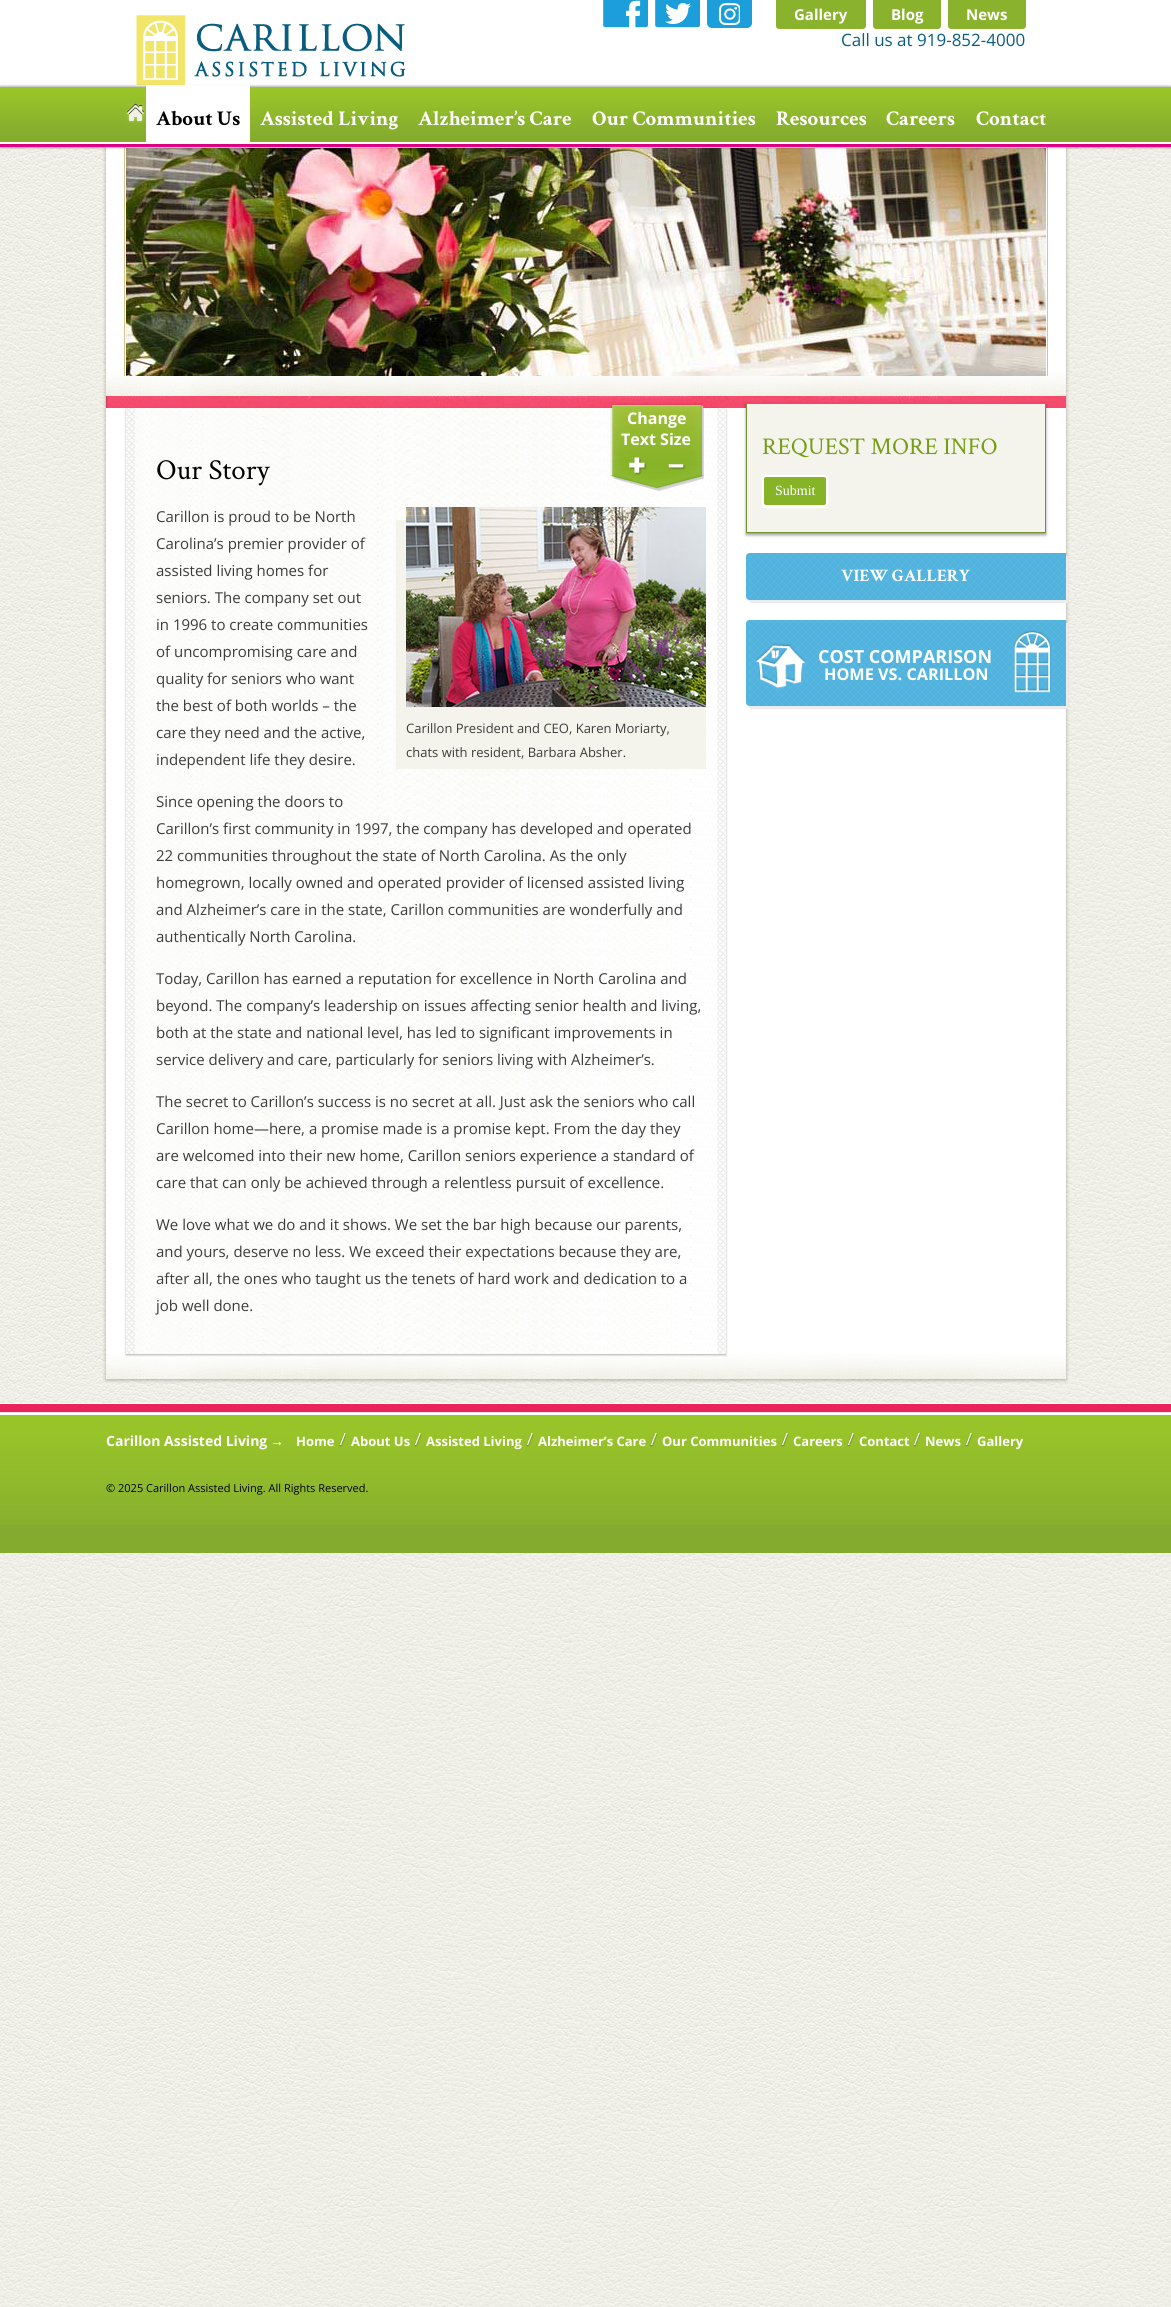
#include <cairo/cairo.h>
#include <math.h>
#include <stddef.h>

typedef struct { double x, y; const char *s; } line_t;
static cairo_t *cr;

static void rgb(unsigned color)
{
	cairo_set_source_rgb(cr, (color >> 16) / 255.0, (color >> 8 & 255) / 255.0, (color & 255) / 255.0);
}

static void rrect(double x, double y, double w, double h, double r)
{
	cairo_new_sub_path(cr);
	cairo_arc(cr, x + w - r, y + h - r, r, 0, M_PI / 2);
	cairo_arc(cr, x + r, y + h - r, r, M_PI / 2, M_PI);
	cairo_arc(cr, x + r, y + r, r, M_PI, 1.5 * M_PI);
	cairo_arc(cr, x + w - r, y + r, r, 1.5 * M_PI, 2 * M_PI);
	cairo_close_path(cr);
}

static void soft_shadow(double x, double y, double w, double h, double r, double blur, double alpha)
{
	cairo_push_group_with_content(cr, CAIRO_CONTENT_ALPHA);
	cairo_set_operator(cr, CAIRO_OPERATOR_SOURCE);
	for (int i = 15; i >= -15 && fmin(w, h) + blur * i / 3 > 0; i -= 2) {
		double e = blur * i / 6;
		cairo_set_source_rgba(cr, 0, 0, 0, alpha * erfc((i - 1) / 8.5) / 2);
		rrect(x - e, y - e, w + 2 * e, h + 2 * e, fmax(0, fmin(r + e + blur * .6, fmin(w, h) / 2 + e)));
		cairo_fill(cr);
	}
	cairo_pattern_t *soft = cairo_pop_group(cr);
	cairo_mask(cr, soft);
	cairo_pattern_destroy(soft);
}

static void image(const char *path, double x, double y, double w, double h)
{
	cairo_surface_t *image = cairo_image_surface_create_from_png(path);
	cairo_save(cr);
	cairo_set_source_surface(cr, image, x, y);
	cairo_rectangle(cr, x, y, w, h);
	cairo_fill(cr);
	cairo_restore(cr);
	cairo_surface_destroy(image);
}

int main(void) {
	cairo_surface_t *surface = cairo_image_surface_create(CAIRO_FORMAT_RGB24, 1171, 2307);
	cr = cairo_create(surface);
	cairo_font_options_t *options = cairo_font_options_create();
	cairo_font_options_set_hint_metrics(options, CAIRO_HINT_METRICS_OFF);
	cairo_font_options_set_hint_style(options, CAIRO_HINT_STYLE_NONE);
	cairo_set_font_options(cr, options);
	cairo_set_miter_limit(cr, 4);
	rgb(0xffffff);
	cairo_paint(cr);
	image("img/1.png", 0, 147, 1171, 2160);
	image("img/2.png", 136, 15, 270, 70);
	image("img/3.png", 603, 0, 45, 28);
	image("img/4.png", 655, 0, 45, 28);
	image("img/5.png", 707, 0, 45, 28);
	rgb(0x8bb22d);
	cairo_new_path(cr);
	cairo_move_to(cr, 776, 0);
	cairo_line_to(cr, 866, 0);
	cairo_line_to(cr, 866, 26);
	cairo_curve_to(cr, 866, 27.5, 864.5, 29, 863, 29);
	cairo_line_to(cr, 779, 29);
	cairo_curve_to(cr, 777.5, 29, 776, 27.5, 776, 26);
	cairo_close_path(cr);
	cairo_fill(cr);
	cairo_new_path(cr);
	cairo_move_to(cr, 873, 0);
	cairo_line_to(cr, 941, 0);
	cairo_line_to(cr, 941, 26);
	cairo_curve_to(cr, 941, 27.5, 939.5, 29, 938, 29);
	cairo_line_to(cr, 876, 29);
	cairo_curve_to(cr, 874.5, 29, 873, 27.5, 873, 26);
	cairo_close_path(cr);
	cairo_fill(cr);
	cairo_new_path(cr);
	cairo_move_to(cr, 948, 0);
	cairo_line_to(cr, 1026, 0);
	cairo_line_to(cr, 1026, 26);
	cairo_curve_to(cr, 1026, 27.5, 1024.5, 29, 1023, 29);
	cairo_line_to(cr, 951, 29);
	cairo_curve_to(cr, 949.5, 29, 948, 27.5, 948, 26);
	cairo_close_path(cr);
	cairo_fill(cr);
	rgb(0x000000);
	soft_shadow(106, 148, 960, 1232, 0, 2, 0.3);
	rgb(0xffffff);
	cairo_rectangle(cr, 106, 147, 960, 1207);
	cairo_fill(cr);
	image("img/8.png", 106, 371, 960, 25);
	rgb(0xdcc289);
	cairo_rectangle(cr, 1047, 147, 1, 229);
	cairo_fill(cr);
	cairo_rectangle(cr, 124, 147, 1, 229);
	cairo_fill(cr);
	image("img/9.png", 126, 148, 920, 228);
	rgb(0x000000);
	soft_shadow(0, 86, 1171, 62, 0, 1, 0.3);
	image("img/6.png", 0, 87, 1171, 60);
	image("img/7.png", 126, 103, 20, 20);
	rgb(0xffffff);
	cairo_rectangle(cr, 146, 85, 104, 57);
	cairo_fill(cr);
	image("img/8.png", 106, 1354, 960, 25);
	image("img/10.png", 106, 396, 960, 12);
	rgb(0x000000);
	soft_shadow(126, 409, 600, 946, 0, 1, 0.3);
	image("img/11.png", 126, 408, 600, 946);
	image("img/12.png", 610, 403, 94, 88);
	image("img/13.png", 629, 457, 18, 18);
	image("img/14.png", 668, 464, 17, 6);
	rgb(0xf5f4ec);
	cairo_rectangle(cr, 396, 520, 310, 249);
	cairo_fill(cr);
	image("img/15.png", 406, 507, 300, 200);
	rgb(0x000000);
	soft_shadow(746, 405, 300, 130, 0, 1.5, 0.4);
	rgb(0xf5f4ec);
	cairo_rectangle(cr, 746.5, 403.5, 299, 129);
	cairo_fill_preserve(cr);
	rgb(0x749330);
	cairo_set_line_width(cr, 1);
	cairo_stroke(cr);
	rgb(0xffffff);
	soft_shadow(762, 476, 66, 32, 4, 0.5, 1);
	rgb(0x87b427);
	rrect(763, 476, 64, 30, 3);
	cairo_fill_preserve(cr);
	rgb(0xffffff);
	cairo_set_line_width(cr, 2);
	cairo_stroke(cr);
	rgb(0xececec);
	cairo_new_path(cr);
	cairo_move_to(cr, 748, 599);
	cairo_curve_to(cr, 748, 601, 750, 603, 752, 603);
	cairo_line_to(cr, 1068, 603);
	cairo_line_to(cr, 1068, 556);
	cairo_line_to(cr, 1066, 556);
	cairo_line_to(cr, 1066, 600);
	cairo_line_to(cr, 750, 600);
	cairo_close_path(cr);
	cairo_fill(cr);
	image("img/16.png", 746, 553, 320, 47);
	cairo_new_path(cr);
	cairo_move_to(cr, 748, 705);
	cairo_curve_to(cr, 748, 707, 750, 709, 752, 709);
	cairo_line_to(cr, 1068, 709);
	cairo_line_to(cr, 1068, 623);
	cairo_line_to(cr, 1066, 623);
	cairo_line_to(cr, 1066, 706);
	cairo_line_to(cr, 750, 706);
	cairo_close_path(cr);
	cairo_fill(cr);
	image("img/17.png", 746, 620, 320, 86);
	rgb(0x85ab2e);
	cairo_rectangle(cr, 0, 1525, 1171, 28);
	cairo_fill(cr);
	image("img/19.png", 0, 1403, 1171, 122);
	image("img/20.png", 339, 1433, 8, 14);
	image("img/20.png", 414, 1433, 8, 14);
	image("img/20.png", 526, 1433, 8, 14);
	image("img/20.png", 650, 1433, 8, 14);
	image("img/20.png", 781, 1433, 8, 14);
	image("img/20.png", 847, 1433, 8, 14);
	image("img/20.png", 913, 1433, 8, 14);
	image("img/20.png", 965, 1433, 8, 14);
	cairo_select_font_face(cr, "Open Sans", CAIRO_FONT_SLANT_NORMAL, CAIRO_FONT_WEIGHT_BOLD);
	cairo_set_font_size(cr, 15);
	rgb(0xffffff);
	{
		static const line_t items[] = {
			{794, 20, "Gallery"},
			{891, 20, "Blog"},
			{966, 20, "News"},
		};
		for (size_t i = 0; i < sizeof items / sizeof *items; i++) {
			cairo_move_to(cr, items[i].x, items[i].y);
			cairo_show_text(cr, items[i].s);
		}
	}
	cairo_select_font_face(cr, "Open Sans", CAIRO_FONT_SLANT_NORMAL, CAIRO_FONT_WEIGHT_NORMAL);
	cairo_set_font_size(cr, 17);
	rgb(0x095d7e);
	cairo_move_to(cr, 841, 46);
	cairo_show_text(cr, "Call us at 919-852-4000");
	cairo_select_font_face(cr, "Crimson Text", CAIRO_FONT_SLANT_NORMAL, CAIRO_FONT_WEIGHT_BOLD);
	cairo_set_font_size(cr, 21);
	rgb(0x000000);
	cairo_move_to(cr, 156, 125);
	cairo_show_text(cr, "About Us");
	rgb(0xffffff);
	{
		static const line_t items[] = {
			{260, 125, "Assisted Living"},
			{418, 125, "Alzheimer’s Care"},
			{592, 125, "Our Communities"},
			{776, 125, "Resources"},
			{886, 125, "Careers"},
			{976, 125, "Contact"},
		};
		for (size_t i = 0; i < sizeof items / sizeof *items; i++) {
			cairo_move_to(cr, items[i].x, items[i].y);
			cairo_show_text(cr, items[i].s);
		}
	}
	cairo_select_font_face(cr, "Open Sans", CAIRO_FONT_SLANT_NORMAL, CAIRO_FONT_WEIGHT_BOLD);
	cairo_set_font_size(cr, 16);
	cairo_move_to(cr, 627, 424);
	cairo_show_text(cr, "Change");
	cairo_move_to(cr, 621, 445);
	cairo_show_text(cr, "Text Size");
	cairo_select_font_face(cr, "Crimson Text", CAIRO_FONT_SLANT_NORMAL, CAIRO_FONT_WEIGHT_NORMAL);
	cairo_set_font_size(cr, 29);
	rgb(0x000000);
	cairo_move_to(cr, 156, 479);
	cairo_show_text(cr, "Our Story");
	cairo_select_font_face(cr, "Open Sans", CAIRO_FONT_SLANT_NORMAL, CAIRO_FONT_WEIGHT_NORMAL);
	cairo_set_font_size(cr, 15);
	rgb(0x3c3c3c);
	{
		static const line_t items[] = {
			{156, 522, "Carillon is proud to be North"},
			{156, 549, "Carolina’s premier provider of"},
			{156, 576, "assisted living homes for"},
			{156, 603, "seniors. The company set out"},
			{156, 630, "in 1996 to create communities"},
			{156, 657, "of uncompromising care and"},
			{156, 684, "quality for seniors who want"},
			{156, 711, "the best of both worlds – the"},
			{156, 738, "care they need and the active,"},
			{156, 765, "independent life they desire."},
		};
		for (size_t i = 0; i < sizeof items / sizeof *items; i++) {
			cairo_move_to(cr, items[i].x, items[i].y);
			cairo_show_text(cr, items[i].s);
		}
	}
	cairo_set_font_size(cr, 13);
	cairo_move_to(cr, 406, 733);
	cairo_show_text(cr, "Carillon President and CEO, Karen Moriarty,");
	cairo_move_to(cr, 406, 757);
	cairo_show_text(cr, "chats with resident, Barbara Absher.");
	cairo_set_font_size(cr, 15);
	{
		static const line_t items[] = {
			{156, 807, "Since opening the doors to"},
			{156, 834, "Carillon’s first community in 1997, the company has developed and operated"},
			{156, 861, "22 communities throughout the state of North Carolina. As the only"},
			{156, 888, "homegrown, locally owned and operated provider of licensed assisted living"},
			{156, 915, "and Alzheimer’s care in the state, Carillon communities are wonderfully and"},
			{156, 942, "authentically North Carolina."},
			{156, 984, "Today, Carillon has earned a reputation for excellence in North Carolina and"},
			{156, 1011, "beyond. The company’s leadership on issues affecting senior health and living,"},
			{156, 1038, "both at the state and national level, has led to significant improvements in"},
			{156, 1065, "service delivery and care, particularly for seniors living with Alzheimer’s."},
			{156, 1107, "The secret to Carillon’s success is no secret at all. Just ask the seniors who call"},
			{156, 1134, "Carillon home—here, a promise made is a promise kept. From the day they"},
			{156, 1161, "are welcomed into their new home, Carillon seniors experience a standard of"},
			{156, 1188, "care that can only be achieved through a relentless pursuit of excellence."},
			{156, 1230, "We love what we do and it shows. We set the bar high because our parents,"},
			{156, 1257, "and yours, deserve no less. We exceed their expectations because they are,"},
			{156, 1284, "after all, the ones who taught us the tenets of hard work and dedication to a"},
			{156, 1311, "job well done."},
		};
		for (size_t i = 0; i < sizeof items / sizeof *items; i++) {
			cairo_move_to(cr, items[i].x, items[i].y);
			cairo_show_text(cr, items[i].s);
		}
	}
	cairo_select_font_face(cr, "Crimson Text", CAIRO_FONT_SLANT_NORMAL, CAIRO_FONT_WEIGHT_NORMAL);
	cairo_set_font_size(cr, 24);
	rgb(0x759d18);
	cairo_move_to(cr, 762, 454);
	cairo_show_text(cr, "REQUEST MORE INFO");
	cairo_select_font_face(cr, "Liberation Serif", CAIRO_FONT_SLANT_NORMAL, CAIRO_FONT_WEIGHT_NORMAL);
	cairo_set_font_size(cr, 14);
	rgb(0xffffff);
	cairo_move_to(cr, 775, 495);
	cairo_show_text(cr, "Submit");
	cairo_select_font_face(cr, "Crimson Text", CAIRO_FONT_SLANT_NORMAL, CAIRO_FONT_WEIGHT_BOLD);
	cairo_set_font_size(cr, 17.5);
	cairo_move_to(cr, 841, 581);
	cairo_show_text(cr, "VIEW GALLERY");
	cairo_select_font_face(cr, "Open Sans", CAIRO_FONT_SLANT_NORMAL, CAIRO_FONT_WEIGHT_BOLD);
	cairo_set_font_size(cr, 18);
	cairo_move_to(cr, 818, 663);
	cairo_show_text(cr, "COST COMPARISON");
	cairo_set_font_size(cr, 16.25);
	cairo_move_to(cr, 824, 680);
	cairo_show_text(cr, "HOME VS. CARILLON");
	image("img/18.png", 756, 630, 295, 63);
	cairo_set_font_size(cr, 14);
	cairo_move_to(cr, 106, 1446);
	cairo_show_text(cr, "Carillon Assisted Living");
	cairo_select_font_face(cr, "Liberation Sans", CAIRO_FONT_SLANT_NORMAL, CAIRO_FONT_WEIGHT_BOLD);
	cairo_move_to(cr, 270, 1446);
	cairo_show_text(cr, "→");
	cairo_select_font_face(cr, "Open Sans", CAIRO_FONT_SLANT_NORMAL, CAIRO_FONT_WEIGHT_BOLD);
	cairo_set_font_size(cr, 13);
	{
		static const line_t items[] = {
			{296, 1446, "Home"},
			{351, 1446, "About Us"},
			{426, 1446, "Assisted Living"},
			{538, 1446, "Alzheimer’s Care"},
			{662, 1446, "Our Communities"},
			{793, 1446, "Careers"},
			{859, 1446, "Contact"},
			{925, 1446, "News"},
			{977, 1446, "Gallery"},
		};
		for (size_t i = 0; i < sizeof items / sizeof *items; i++) {
			cairo_move_to(cr, items[i].x, items[i].y);
			cairo_show_text(cr, items[i].s);
		}
	}
	cairo_select_font_face(cr, "Open Sans", CAIRO_FONT_SLANT_NORMAL, CAIRO_FONT_WEIGHT_NORMAL);
	cairo_set_font_size(cr, 11);
	rgb(0x000000);
	cairo_move_to(cr, 106, 1492);
	cairo_show_text(cr, "© 2025 Carillon Assisted Living. All Rights Reserved.");
	cairo_surface_write_to_png(surface, "page.png");
	cairo_font_options_destroy(options);
	cairo_destroy(cr);
	cairo_surface_destroy(surface);
	return 0;
}
